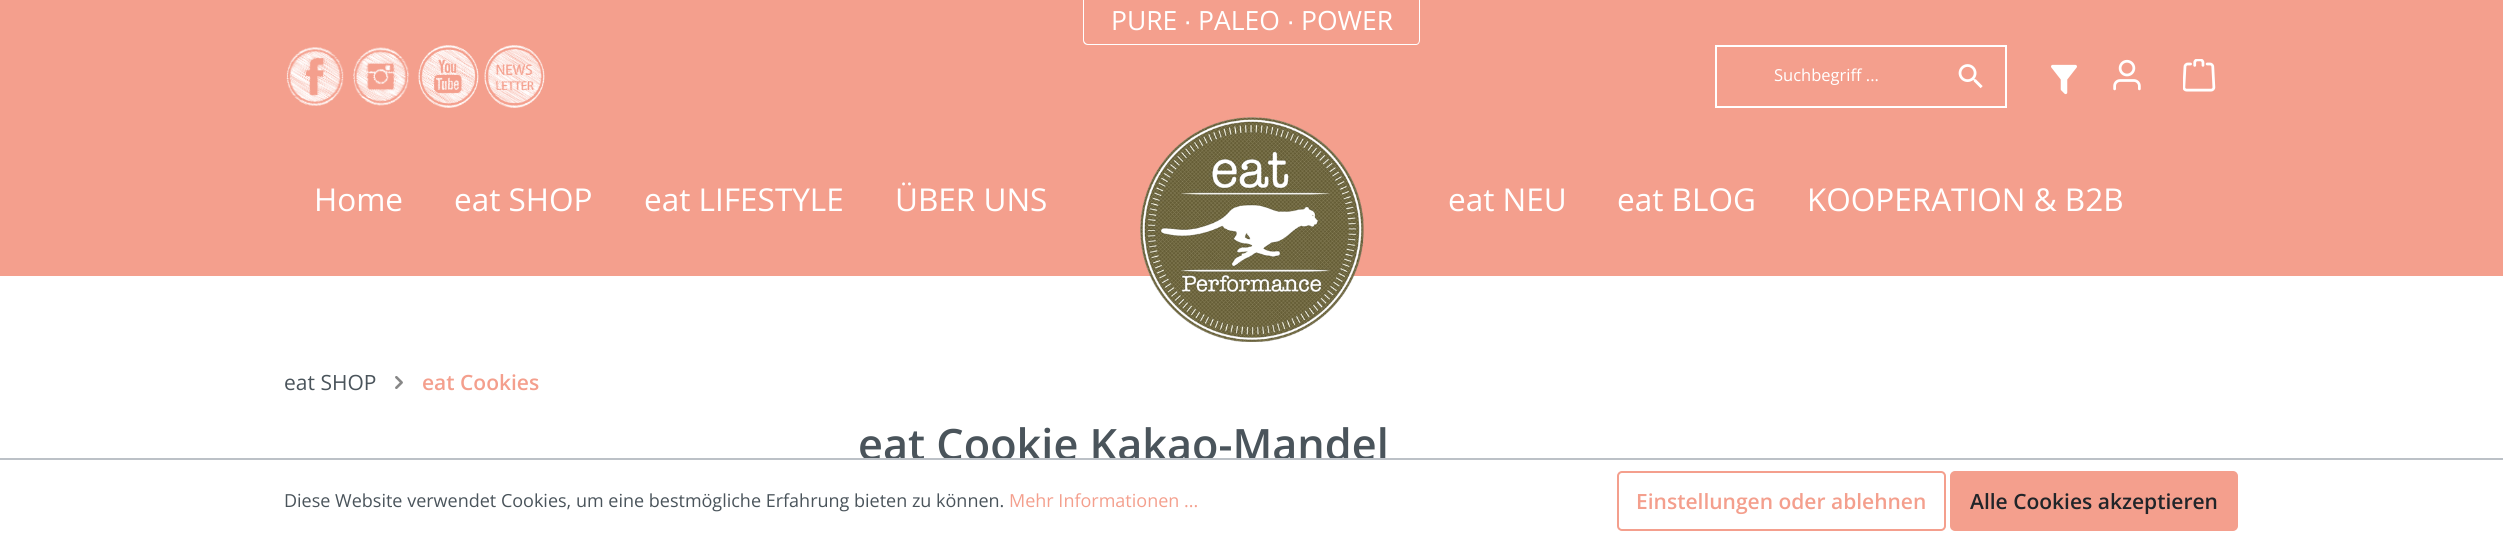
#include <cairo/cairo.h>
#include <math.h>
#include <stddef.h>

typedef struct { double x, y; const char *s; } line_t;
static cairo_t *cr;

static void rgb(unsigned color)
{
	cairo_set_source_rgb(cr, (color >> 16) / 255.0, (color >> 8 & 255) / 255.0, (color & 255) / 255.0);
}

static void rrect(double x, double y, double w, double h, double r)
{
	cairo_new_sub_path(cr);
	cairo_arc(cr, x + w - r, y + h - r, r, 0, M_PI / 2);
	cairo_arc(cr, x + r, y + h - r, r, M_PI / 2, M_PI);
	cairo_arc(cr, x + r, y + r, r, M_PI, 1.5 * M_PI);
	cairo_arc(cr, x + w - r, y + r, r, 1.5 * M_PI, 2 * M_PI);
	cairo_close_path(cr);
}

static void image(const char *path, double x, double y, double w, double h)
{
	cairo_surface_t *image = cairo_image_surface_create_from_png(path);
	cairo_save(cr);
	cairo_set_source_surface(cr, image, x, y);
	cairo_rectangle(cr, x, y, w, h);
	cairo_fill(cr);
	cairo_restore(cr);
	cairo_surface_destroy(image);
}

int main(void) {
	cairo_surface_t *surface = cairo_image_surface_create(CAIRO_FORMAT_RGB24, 2503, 543);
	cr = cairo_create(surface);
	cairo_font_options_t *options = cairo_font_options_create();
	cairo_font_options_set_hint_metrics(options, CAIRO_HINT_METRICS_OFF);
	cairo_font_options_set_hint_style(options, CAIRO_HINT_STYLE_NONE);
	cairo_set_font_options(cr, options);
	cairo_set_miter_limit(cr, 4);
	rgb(0xffffff);
	cairo_paint(cr);
	rgb(0xf49f8d);
	cairo_rectangle(cr, 0, 0, 2503, 276);
	cairo_fill(cr);
	rgb(0xffffff);
	cairo_set_fill_rule(cr, CAIRO_FILL_RULE_EVEN_ODD);
	cairo_new_path(cr);
	cairo_move_to(cr, 1083, 0);
	cairo_line_to(cr, 1420, 0);
	cairo_line_to(cr, 1420, 40);
	cairo_curve_to(cr, 1420, 43, 1418, 45, 1416, 45);
	cairo_line_to(cr, 1088, 45);
	cairo_curve_to(cr, 1085, 45, 1083, 43, 1083, 40);
	cairo_close_path(cr);
	cairo_move_to(cr, 1084, 0);
	cairo_line_to(cr, 1419, 0);
	cairo_line_to(cr, 1419, 40);
	cairo_curve_to(cr, 1419, 42, 1418, 44, 1416, 44);
	cairo_line_to(cr, 1088, 44);
	cairo_curve_to(cr, 1086, 44, 1084, 42, 1084, 40);
	cairo_close_path(cr);
	cairo_fill(cr);
	image("img/1.png", 286, 47, 58, 59);
	image("img/2.png", 353, 47, 57, 59);
	image("img/3.png", 418, 45, 61, 63);
	image("img/4.png", 484, 45, 61, 63);
	cairo_rectangle(cr, 1716, 46, 290, 61);
	cairo_stroke(cr);
	image("img/5.png", 1958, 64, 25, 25);
	image("img/6.png", 2051, 64, 26, 31);
	image("img/7.png", 2113, 59, 28, 32);
	image("img/8.png", 2183, 59, 33, 33);
	image("img/9.png", 1140, 117, 224, 225);
	image("img/10.png", 395, 376, 8, 13);
	rrect(1618, 472, 327, 58, 4);
	rgb(0xf49f8d);
	cairo_stroke(cr);
	rrect(1951, 472, 286, 58, 4);
	cairo_fill_preserve(cr);
	cairo_stroke(cr);
	cairo_select_font_face(cr, "Open Sans", CAIRO_FONT_SLANT_NORMAL, CAIRO_FONT_WEIGHT_NORMAL);
	cairo_set_font_size(cr, 26.5);
	rgb(0xffffff);
	cairo_move_to(cr, 1111, 30);
	cairo_show_text(cr, "PURE");
	cairo_select_font_face(cr, "Liberation Sans", CAIRO_FONT_SLANT_NORMAL, CAIRO_FONT_WEIGHT_NORMAL);
	cairo_move_to(cr, 1184, 30);
	cairo_show_text(cr, "∙");
	cairo_select_font_face(cr, "Open Sans", CAIRO_FONT_SLANT_NORMAL, CAIRO_FONT_WEIGHT_NORMAL);
	cairo_move_to(cr, 1198, 30);
	cairo_show_text(cr, "PALEO");
	cairo_select_font_face(cr, "Liberation Sans", CAIRO_FONT_SLANT_NORMAL, CAIRO_FONT_WEIGHT_NORMAL);
	cairo_move_to(cr, 1287, 30);
	cairo_show_text(cr, "∙");
	cairo_select_font_face(cr, "Open Sans", CAIRO_FONT_SLANT_NORMAL, CAIRO_FONT_WEIGHT_NORMAL);
	cairo_move_to(cr, 1301, 30);
	cairo_show_text(cr, "POWER");
	cairo_set_font_size(cr, 16.5);
	cairo_move_to(cr, 1774, 81);
	cairo_show_text(cr, "Suchbegriff ...");
	cairo_set_font_size(cr, 31.5);
	{
		static const line_t items[] = {
			{314, 211, "Home"},
			{454, 211, "eat SHOP"},
			{644, 211, "eat LIFESTYLE"},
			{895, 211, "ÜBER UNS"},
			{1448, 211, "eat NEU"},
			{1617, 211, "eat BLOG"},
			{1807, 211, "KOOPERATION & B2B"},
		};
		for (size_t i = 0; i < sizeof items / sizeof *items; i++) {
			cairo_move_to(cr, items[i].x, items[i].y);
			cairo_show_text(cr, items[i].s);
		}
	}
	cairo_set_font_size(cr, 21);
	rgb(0x4a545b);
	cairo_move_to(cr, 284, 390);
	cairo_show_text(cr, "eat SHOP");
	cairo_select_font_face(cr, "Open Sans SemiBold", CAIRO_FONT_SLANT_NORMAL, CAIRO_FONT_WEIGHT_NORMAL);
	rgb(0xf49f8d);
	cairo_move_to(cr, 422, 390);
	cairo_show_text(cr, "eat Cookies");
	cairo_set_font_size(cr, 43.25);
	rgb(0x4a545b);
	cairo_move_to(cr, 858, 460);
	cairo_show_text(cr, "eat Cookie Kakao-Mandel");
	rgb(0xffffff);
	cairo_rectangle(cr, 868, 460, 502, 1);
	cairo_fill(cr);
	rgb(0xbcc1c7);
	cairo_rectangle(cr, 0, 458, 2503, 2);
	cairo_fill(cr);
	cairo_select_font_face(cr, "Open Sans", CAIRO_FONT_SLANT_NORMAL, CAIRO_FONT_WEIGHT_NORMAL);
	cairo_set_font_size(cr, 18);
	rgb(0x4a545b);
	cairo_move_to(cr, 284, 507);
	cairo_show_text(cr, "Diese Website verwendet Cookies, um eine bestmögliche Erfahrung bieten zu können.");
	rgb(0xf49f8d);
	cairo_move_to(cr, 1009, 507);
	cairo_show_text(cr, "Mehr Informationen ...");
	cairo_select_font_face(cr, "Open Sans SemiBold", CAIRO_FONT_SLANT_NORMAL, CAIRO_FONT_WEIGHT_NORMAL);
	cairo_set_font_size(cr, 21);
	cairo_move_to(cr, 1636, 509);
	cairo_show_text(cr, "Einstellungen oder ablehnen");
	rgb(0x212529);
	cairo_move_to(cr, 1970, 509);
	cairo_show_text(cr, "Alle Cookies akzeptieren");
	cairo_surface_write_to_png(surface, "page.png");
	cairo_font_options_destroy(options);
	cairo_destroy(cr);
	cairo_surface_destroy(surface);
	return 0;
}
